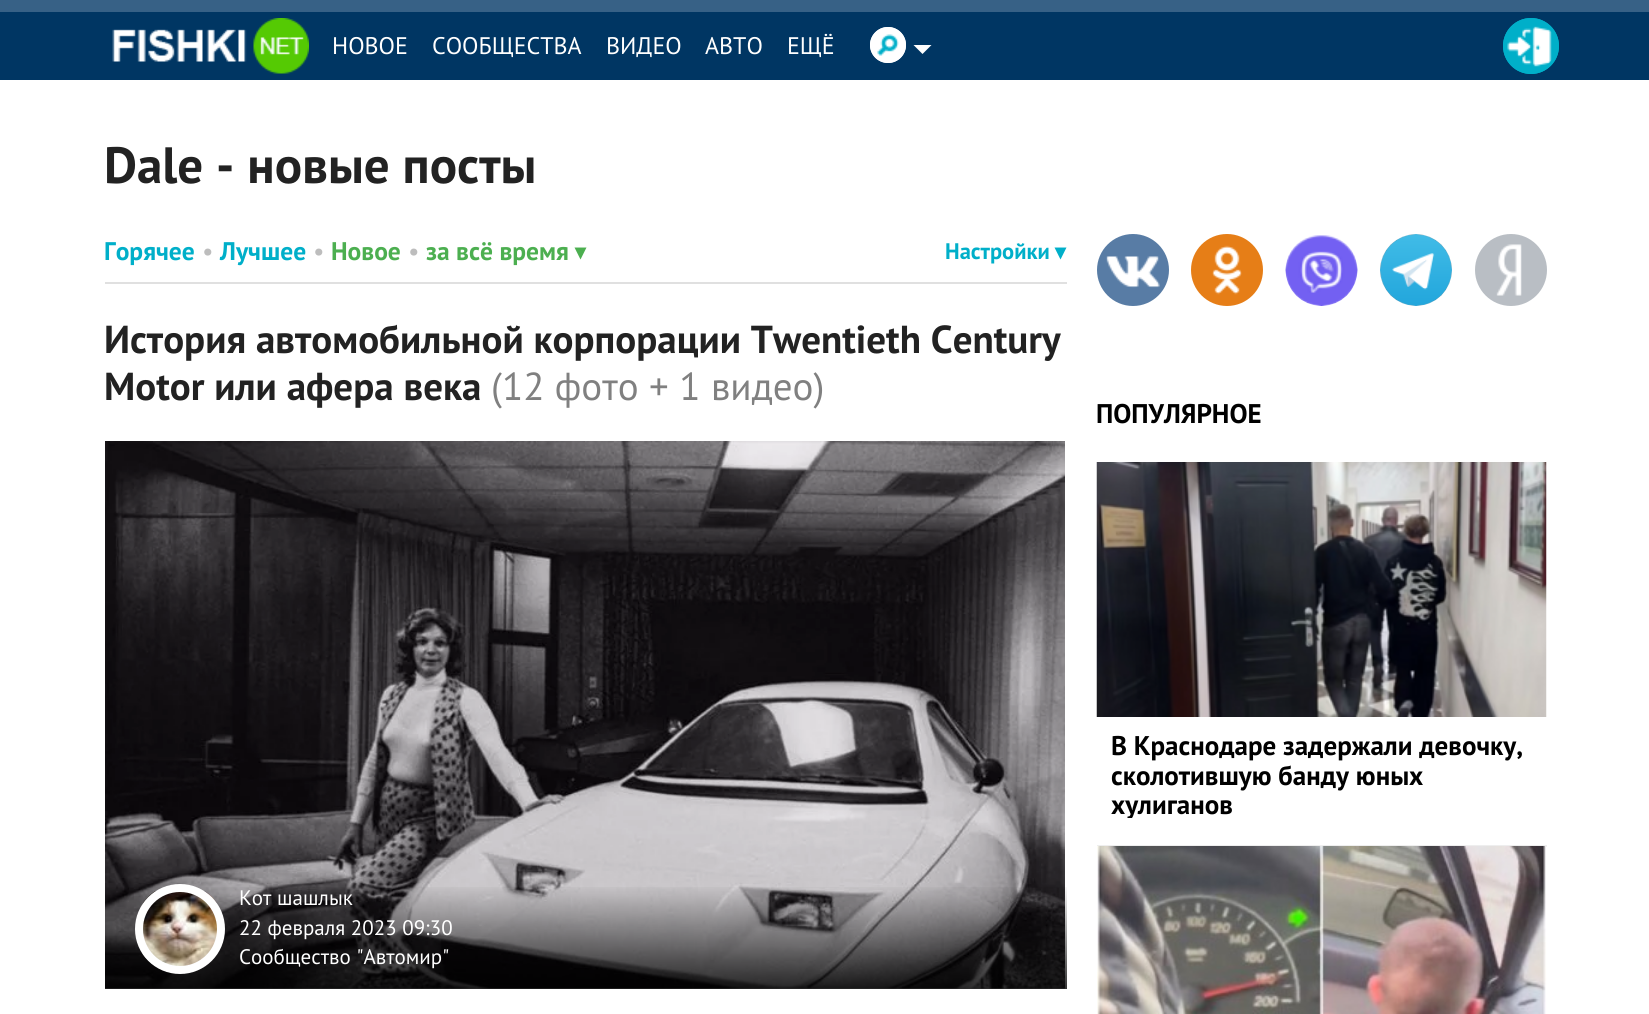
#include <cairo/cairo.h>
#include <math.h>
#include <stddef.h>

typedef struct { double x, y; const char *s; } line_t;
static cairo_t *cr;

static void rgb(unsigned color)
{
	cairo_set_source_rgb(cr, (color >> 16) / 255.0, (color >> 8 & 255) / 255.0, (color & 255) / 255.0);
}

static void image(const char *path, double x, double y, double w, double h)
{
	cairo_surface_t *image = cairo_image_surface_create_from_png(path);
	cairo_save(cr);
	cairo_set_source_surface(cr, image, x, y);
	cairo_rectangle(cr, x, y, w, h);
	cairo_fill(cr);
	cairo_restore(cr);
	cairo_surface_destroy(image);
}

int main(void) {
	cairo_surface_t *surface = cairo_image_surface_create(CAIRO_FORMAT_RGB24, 1649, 1014);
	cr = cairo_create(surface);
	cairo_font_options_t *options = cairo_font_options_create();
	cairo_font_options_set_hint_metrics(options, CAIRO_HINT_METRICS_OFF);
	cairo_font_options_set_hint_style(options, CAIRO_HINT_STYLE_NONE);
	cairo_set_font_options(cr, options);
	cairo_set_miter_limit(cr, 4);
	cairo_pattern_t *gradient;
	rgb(0xffffff);
	cairo_paint(cr);
	rgb(0x003663);
	cairo_rectangle(cr, 0, 12, 1649, 68);
	cairo_fill(cr);
	rgb(0x376186);
	cairo_rectangle(cr, 0, 0, 1649, 12);
	cairo_fill(cr);
	image("img/1.png", 112, 18, 197, 56);
	rgb(0xffffff);
	cairo_arc(cr, 888, 45, 18, 0, 2 * M_PI);
	cairo_fill(cr);
	image("img/2.png", 877, 34, 22, 22);
	cairo_arc(cr, 888, 45, 16.5, 0, 2 * M_PI);
	cairo_set_line_width(cr, 3);
	cairo_stroke(cr);
	cairo_new_path(cr);
	cairo_move_to(cr, 913.5, 45);
	cairo_line_to(cr, 931.5, 45);
	cairo_line_to(cr, 922.5, 54);
	cairo_close_path(cr);
	cairo_fill(cr);
	rgb(0x00afc9);
	cairo_arc(cr, 1531, 46, 28, 0, 2 * M_PI);
	cairo_fill(cr);
	image("img/3.png", 1507, 26, 45, 41);
	cairo_arc(cr, 1531, 46, 26.5, 0, 2 * M_PI);
	cairo_stroke(cr);
	rgb(0xe0e0e0);
	cairo_rectangle(cr, 105, 282, 962, 2);
	cairo_fill(cr);
	rgb(0x4caf50);
	cairo_new_path(cr);
	cairo_move_to(cr, 574.5, 247.5);
	cairo_line_to(cr, 586.5, 247.5);
	cairo_line_to(cr, 580.5, 259.5);
	cairo_close_path(cr);
	cairo_fill(cr);
	rgb(0x00afc9);
	cairo_new_path(cr);
	cairo_move_to(cr, 1054.5, 247.5);
	cairo_line_to(cr, 1066.5, 247.5);
	cairo_line_to(cr, 1060.5, 259.5);
	cairo_close_path(cr);
	cairo_fill(cr);
	image("img/4.png", 105, 441, 960, 548);
	gradient = cairo_pattern_create_linear(586, 989, 586, 884);
	cairo_pattern_add_color_stop_rgba(gradient, 0, 0, 0, 0, 0.8);
	cairo_pattern_add_color_stop_rgba(gradient, 1, 0, 0, 0, 0);
	cairo_set_source(cr, gradient);
	cairo_pattern_destroy(gradient);
	cairo_rectangle(cr, 105, 887, 962, 102);
	cairo_fill(cr);
	image("img/5.png", 142, 891, 76, 75);
	cairo_arc(cr, 180, 929, 41, 0, 2 * M_PI);
	rgb(0xffffff);
	cairo_set_line_width(cr, 8);
	cairo_stroke(cr);
	rgb(0x587ca5);
	cairo_arc(cr, 1133, 270, 36, 0, 2 * M_PI);
	cairo_fill(cr);
	image("img/6.png", 1106, 256, 54, 32);
	rgb(0xe67e17);
	cairo_arc(cr, 1227, 270, 36, 0, 2 * M_PI);
	cairo_fill(cr);
	image("img/7.png", 1212, 245, 30, 50);
	image("img/8.png", 1285, 235, 73, 71);
	image("img/9.png", 1380, 234, 72, 72);
	rgb(0xb9bec4);
	cairo_arc(cr, 1511, 270, 36, 0, 2 * M_PI);
	cairo_fill(cr);
	image("img/10.png", 1496, 244, 26, 52);
	image("img/11.png", 1096, 462, 451, 255);
	rgb(0xeeeeee);
	cairo_rectangle(cr, 1097, 845, 450, 2);
	cairo_fill(cr);
	image("img/12.png", 1097, 846, 450, 168);
	cairo_select_font_face(cr, "PT Sans", CAIRO_FONT_SLANT_NORMAL, CAIRO_FONT_WEIGHT_NORMAL);
	cairo_set_font_size(cr, 24);
	rgb(0xffffff);
	{
		static const line_t items[] = {
			{332, 54, "НОВОЕ"},
			{432, 54, "СООБЩЕСТВА"},
			{606, 54, "ВИДЕО"},
			{705, 54, "АВТО"},
			{787, 54, "ЕЩЁ"},
		};
		for (size_t i = 0; i < sizeof items / sizeof *items; i++) {
			cairo_move_to(cr, items[i].x, items[i].y);
			cairo_show_text(cr, items[i].s);
		}
	}
	cairo_select_font_face(cr, "PT Sans", CAIRO_FONT_SLANT_NORMAL, CAIRO_FONT_WEIGHT_BOLD);
	cairo_set_font_size(cr, 51);
	rgb(0x222222);
	cairo_move_to(cr, 104, 183);
	cairo_show_text(cr, "Dale - новые посты");
	cairo_set_font_size(cr, 25.5);
	rgb(0x00afc9);
	cairo_move_to(cr, 104, 260);
	cairo_show_text(cr, "Горячее");
	cairo_select_font_face(cr, "PT Sans", CAIRO_FONT_SLANT_NORMAL, CAIRO_FONT_WEIGHT_NORMAL);
	rgb(0xbdbdbd);
	cairo_move_to(cr, 202, 260);
	cairo_show_text(cr, "•");
	cairo_select_font_face(cr, "PT Sans", CAIRO_FONT_SLANT_NORMAL, CAIRO_FONT_WEIGHT_BOLD);
	rgb(0x00afc9);
	cairo_move_to(cr, 220, 260);
	cairo_show_text(cr, "Лучшее");
	cairo_select_font_face(cr, "PT Sans", CAIRO_FONT_SLANT_NORMAL, CAIRO_FONT_WEIGHT_NORMAL);
	rgb(0xbdbdbd);
	cairo_move_to(cr, 313, 260);
	cairo_show_text(cr, "•");
	cairo_select_font_face(cr, "PT Sans", CAIRO_FONT_SLANT_NORMAL, CAIRO_FONT_WEIGHT_BOLD);
	rgb(0x4caf50);
	cairo_move_to(cr, 331, 260);
	cairo_show_text(cr, "Новое");
	cairo_select_font_face(cr, "PT Sans", CAIRO_FONT_SLANT_NORMAL, CAIRO_FONT_WEIGHT_NORMAL);
	rgb(0xbdbdbd);
	cairo_move_to(cr, 408, 260);
	cairo_show_text(cr, "•");
	cairo_select_font_face(cr, "PT Sans", CAIRO_FONT_SLANT_NORMAL, CAIRO_FONT_WEIGHT_BOLD);
	rgb(0x4caf50);
	cairo_move_to(cr, 426, 260);
	cairo_show_text(cr, "за всё время");
	cairo_set_font_size(cr, 22.5);
	rgb(0x00afc9);
	cairo_move_to(cr, 945, 259);
	cairo_show_text(cr, "Настройки");
	cairo_set_font_size(cr, 39);
	rgb(0x222222);
	cairo_move_to(cr, 104, 353);
	cairo_show_text(cr, "История автомобильной корпорации Twentieth Century");
	cairo_move_to(cr, 104, 400);
	cairo_show_text(cr, "Motor или афера века");
	cairo_select_font_face(cr, "PT Sans", CAIRO_FONT_SLANT_NORMAL, CAIRO_FONT_WEIGHT_NORMAL);
	rgb(0x808080);
	cairo_move_to(cr, 491, 400);
	cairo_show_text(cr, "(12 фото + 1 видео)");
	cairo_set_font_size(cr, 21);
	rgb(0xffffff);
	{
		static const line_t items[] = {
			{239, 905, "Кот шашлык"},
			{239, 935, "22 февраля 2023 09:30"},
			{239, 964, "Сообщество \"Автомир\""},
		};
		for (size_t i = 0; i < sizeof items / sizeof *items; i++) {
			cairo_move_to(cr, items[i].x, items[i].y);
			cairo_show_text(cr, items[i].s);
		}
	}
	cairo_select_font_face(cr, "PT Sans", CAIRO_FONT_SLANT_NORMAL, CAIRO_FONT_WEIGHT_BOLD);
	cairo_set_font_size(cr, 27);
	rgb(0x000000);
	{
		static const line_t items[] = {
			{1096, 423, "ПОПУЛЯРНОЕ"},
			{1111, 755, "В Краснодаре задержали девочку,"},
			{1111, 785, "сколотившую банду юных"},
		};
		for (size_t i = 0; i < sizeof items / sizeof *items; i++) {
			cairo_move_to(cr, items[i].x, items[i].y);
			cairo_show_text(cr, items[i].s);
		}
	}
	cairo_save(cr);
	cairo_rectangle(cr, 1097, 731, 450, 87);
	cairo_clip(cr);
	cairo_move_to(cr, 1111, 814);
	cairo_show_text(cr, "хулиганов");
	cairo_restore(cr);
	cairo_surface_write_to_png(surface, "page.png");
	cairo_font_options_destroy(options);
	cairo_destroy(cr);
	cairo_surface_destroy(surface);
	return 0;
}
